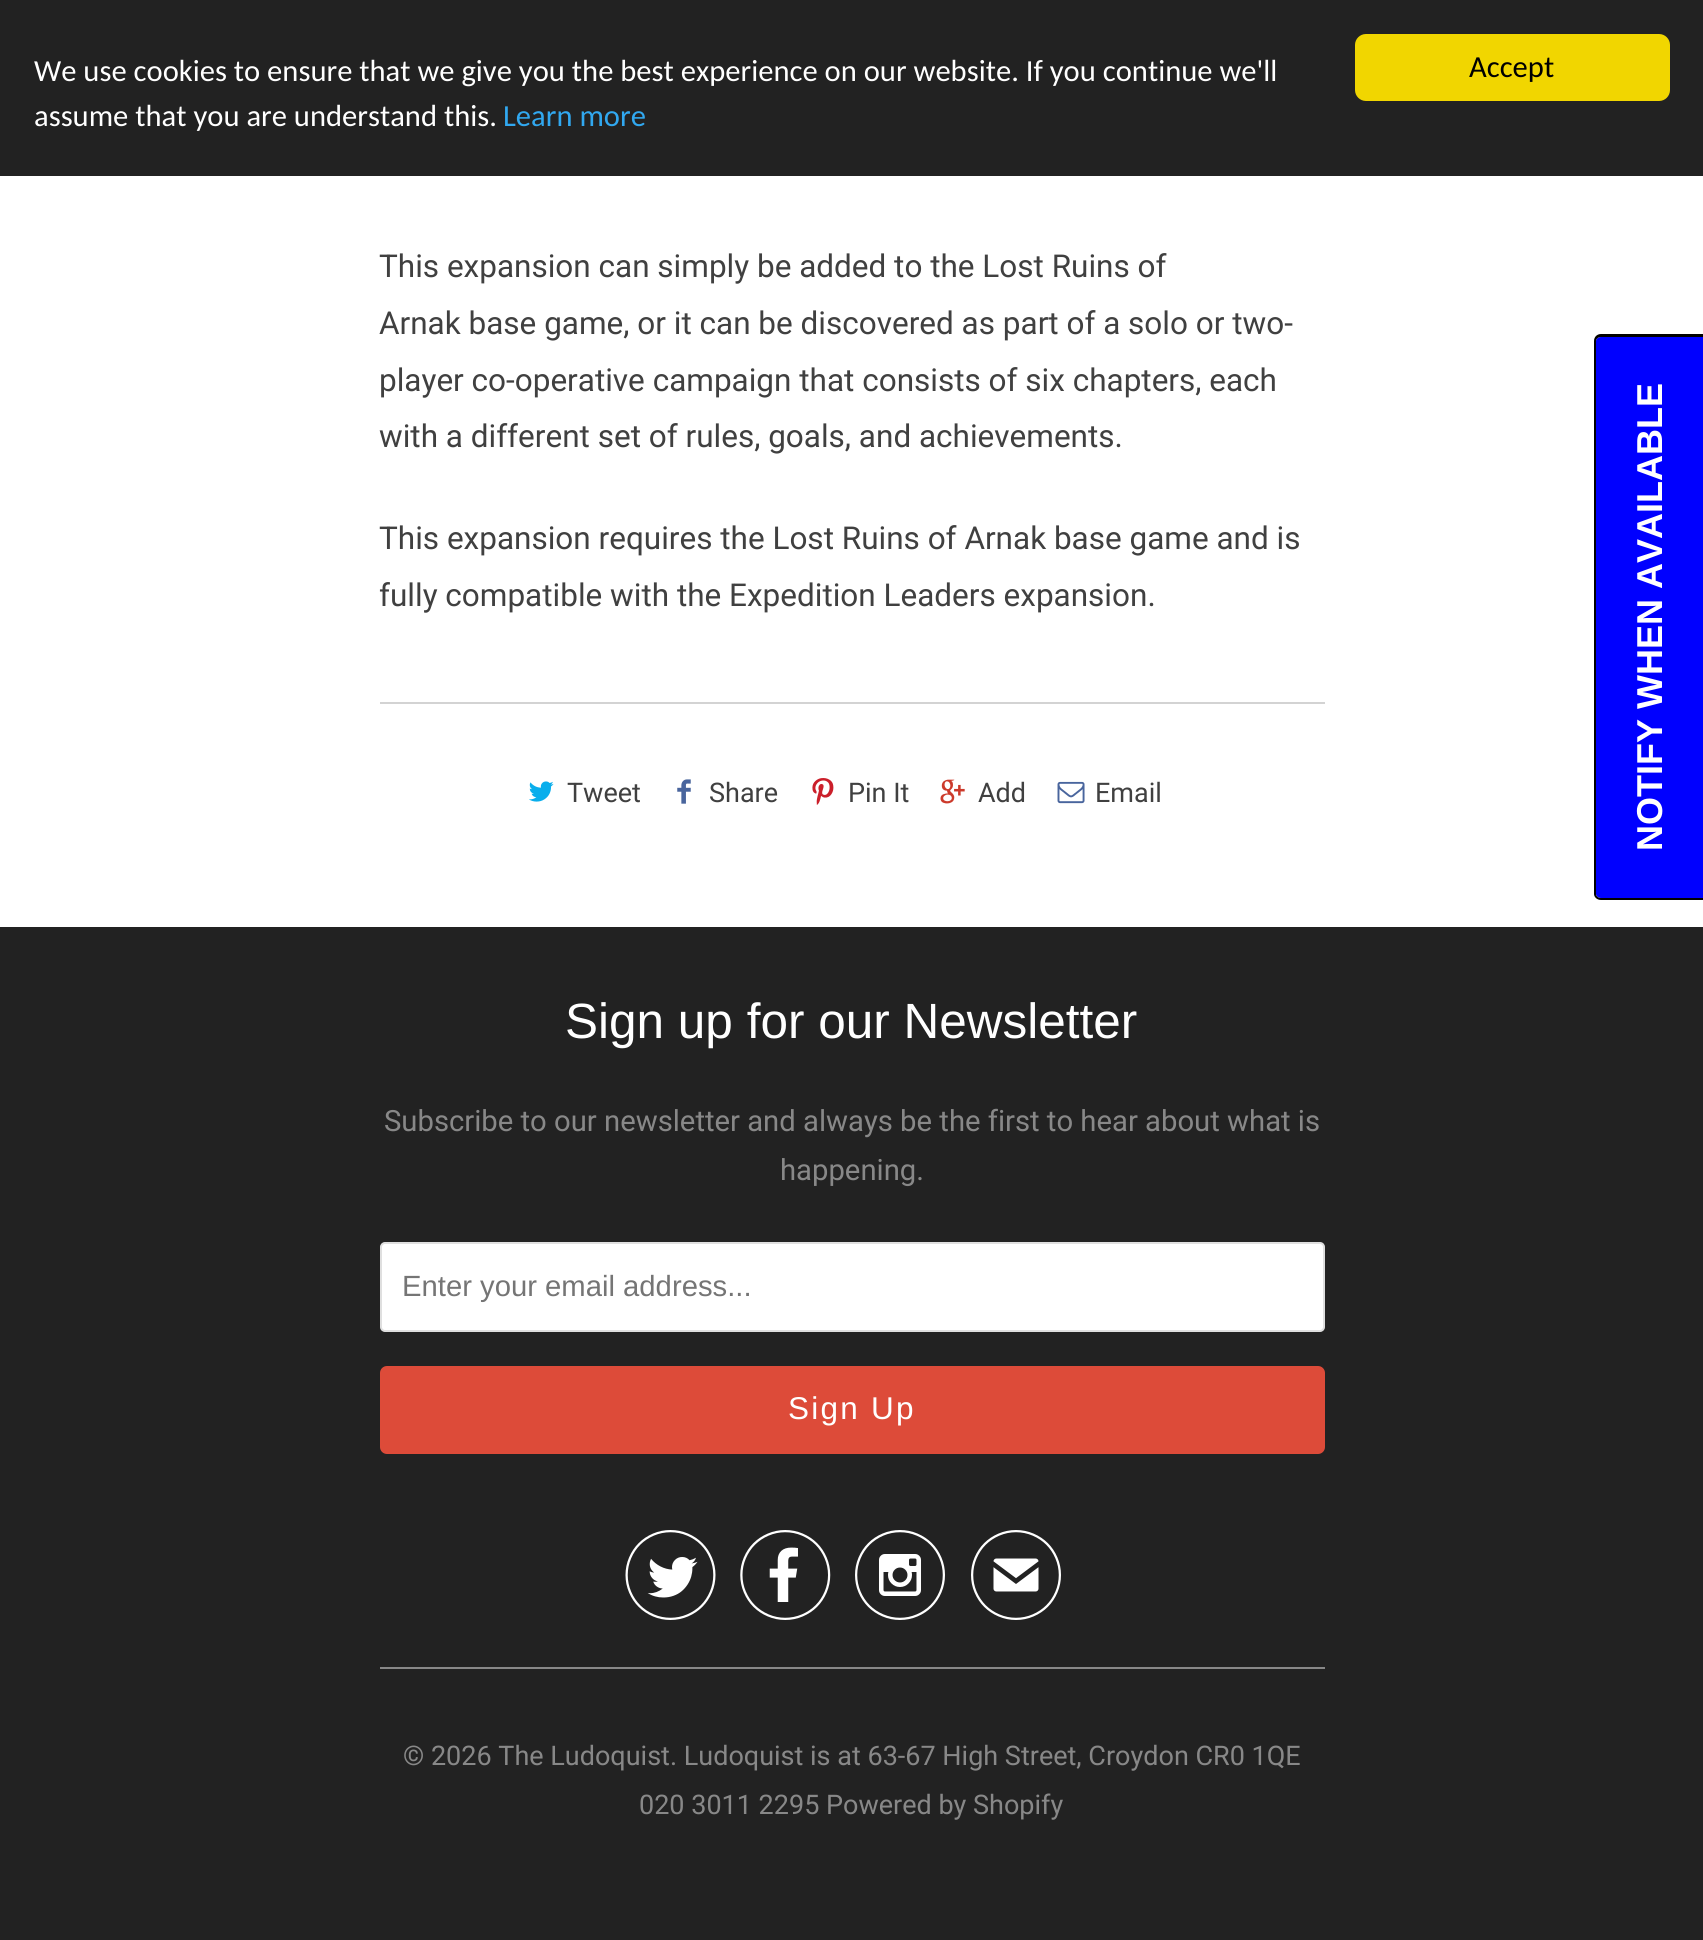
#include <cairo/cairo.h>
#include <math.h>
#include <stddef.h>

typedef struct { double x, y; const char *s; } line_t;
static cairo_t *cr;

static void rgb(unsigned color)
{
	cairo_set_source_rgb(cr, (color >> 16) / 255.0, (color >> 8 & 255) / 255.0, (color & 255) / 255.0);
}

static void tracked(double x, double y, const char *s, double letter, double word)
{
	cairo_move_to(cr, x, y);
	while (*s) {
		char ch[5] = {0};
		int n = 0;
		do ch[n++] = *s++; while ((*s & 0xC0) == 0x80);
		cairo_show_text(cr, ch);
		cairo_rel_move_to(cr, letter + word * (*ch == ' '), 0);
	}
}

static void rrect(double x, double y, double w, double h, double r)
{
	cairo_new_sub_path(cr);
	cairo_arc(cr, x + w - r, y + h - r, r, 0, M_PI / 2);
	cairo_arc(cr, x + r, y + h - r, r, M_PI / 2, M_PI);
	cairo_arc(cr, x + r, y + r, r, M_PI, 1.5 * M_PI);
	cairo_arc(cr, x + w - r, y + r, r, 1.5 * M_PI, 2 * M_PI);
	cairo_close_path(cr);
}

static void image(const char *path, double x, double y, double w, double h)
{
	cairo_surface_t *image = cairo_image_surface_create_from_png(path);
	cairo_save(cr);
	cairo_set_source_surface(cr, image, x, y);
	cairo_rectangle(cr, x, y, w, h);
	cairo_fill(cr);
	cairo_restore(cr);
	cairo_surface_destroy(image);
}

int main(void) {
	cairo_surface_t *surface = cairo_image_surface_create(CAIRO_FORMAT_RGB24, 1703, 1940);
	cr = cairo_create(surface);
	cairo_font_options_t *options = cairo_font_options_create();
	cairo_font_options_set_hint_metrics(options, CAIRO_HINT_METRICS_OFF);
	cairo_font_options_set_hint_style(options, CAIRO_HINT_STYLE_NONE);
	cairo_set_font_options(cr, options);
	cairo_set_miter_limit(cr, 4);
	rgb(0xffffff);
	cairo_paint(cr);
	rgb(0x222222);
	cairo_rectangle(cr, 0, 0, 1703, 176);
	cairo_fill(cr);
	rgb(0xf1d600);
	rrect(1355, 34, 315, 67, 11);
	cairo_fill(cr);
	rgb(0xd3d3d3);
	cairo_rectangle(cr, 380, 702, 945, 2);
	cairo_fill(cr);
	image("img/1.png", 529, 781, 25, 21);
	image("img/2.png", 677, 779, 14, 25);
	image("img/3.png", 812, 778, 22, 27);
	image("img/4.png", 940, 779, 25, 25);
	image("img/5.png", 1057, 781, 28, 23);
	rgb(0x0000ff);
	cairo_new_path(cr);
	cairo_move_to(cr, 1596, 894);
	cairo_line_to(cr, 1596, 341);
	cairo_curve_to(cr, 1596, 339, 1598, 337, 1601, 337);
	cairo_line_to(cr, 1703, 337);
	cairo_line_to(cr, 1703, 898);
	cairo_line_to(cr, 1601, 898);
	cairo_curve_to(cr, 1598, 898, 1596, 896, 1596, 894);
	cairo_close_path(cr);
	cairo_fill(cr);
	rgb(0x000000);
	cairo_set_fill_rule(cr, CAIRO_FILL_RULE_EVEN_ODD);
	cairo_new_path(cr);
	cairo_move_to(cr, 1594, 894);
	cairo_line_to(cr, 1594, 341);
	cairo_curve_to(cr, 1594, 337, 1597, 334, 1601, 334);
	cairo_line_to(cr, 1703, 334);
	cairo_line_to(cr, 1703, 900);
	cairo_line_to(cr, 1601, 900);
	cairo_curve_to(cr, 1597, 900, 1594, 897, 1594, 894);
	cairo_close_path(cr);
	cairo_move_to(cr, 1596, 894);
	cairo_line_to(cr, 1596, 341);
	cairo_curve_to(cr, 1596, 339, 1598, 337, 1601, 337);
	cairo_line_to(cr, 1703, 337);
	cairo_line_to(cr, 1703, 898);
	cairo_line_to(cr, 1601, 898);
	cairo_curve_to(cr, 1598, 898, 1596, 896, 1596, 894);
	cairo_close_path(cr);
	cairo_fill(cr);
	rgb(0x222222);
	cairo_rectangle(cr, 0, 927, 1703, 1013);
	cairo_fill(cr);
	rgb(0xffffff);
	rrect(381, 1243, 943, 88, 4);
	cairo_fill_preserve(cr);
	rgb(0xdfdfdf);
	cairo_stroke(cr);
	rgb(0xdd4b39);
	rrect(381, 1367, 943, 86, 6);
	cairo_fill_preserve(cr);
	cairo_stroke(cr);
	image("img/6.png", 625, 1530, 91, 90);
	image("img/7.png", 740, 1530, 91, 90);
	image("img/8.png", 855, 1530, 90, 90);
	rgb(0x888888);
	cairo_rectangle(cr, 380, 1667, 945, 2);
	cairo_fill(cr);
	cairo_select_font_face(cr, "Carlito", CAIRO_FONT_SLANT_NORMAL, CAIRO_FONT_WEIGHT_NORMAL);
	cairo_set_font_size(cr, 30.6);
	rgb(0xffffff);
	cairo_move_to(cr, 34, 81);
	cairo_show_text(cr, "We use cookies to ensure that we give you the best experience on our website. If you continue we'll");
	cairo_move_to(cr, 34, 126);
	cairo_show_text(cr, "assume that you are understand this.");
	rgb(0x31a8f0);
	cairo_move_to(cr, 503, 126);
	cairo_show_text(cr, "Learn more");
	rgb(0x000000);
	cairo_move_to(cr, 1469, 77);
	cairo_show_text(cr, "Accept");
	cairo_select_font_face(cr, "Roboto", CAIRO_FONT_SLANT_NORMAL, CAIRO_FONT_WEIGHT_NORMAL);
	cairo_set_font_size(cr, 31.5);
	rgb(0x404040);
	{
		static const line_t items[] = {
			{379, 277, "This expansion can simply be added to the Lost Ruins of"},
			{379, 334, "Arnak base game, or it can be discovered as part of a solo or two-"},
			{379, 391, "player co-operative campaign that consists of six chapters, each"},
			{379, 447, "with a different set of rules, goals, and achievements."},
			{379, 549, "This expansion requires the Lost Ruins of Arnak base game and is"},
			{379, 606, "fully compatible with the Expedition Leaders expansion."},
		};
		for (size_t i = 0; i < sizeof items / sizeof *items; i++) {
			cairo_move_to(cr, items[i].x, items[i].y);
			cairo_show_text(cr, items[i].s);
		}
	}
	cairo_set_font_size(cr, 27);
	{
		static const line_t items[] = {
			{567, 802, "Tweet"},
			{709, 802, "Share"},
			{848, 802, "Pin It"},
			{978, 802, "Add"},
			{1095, 802, "Email"},
		};
		for (size_t i = 0; i < sizeof items / sizeof *items; i++) {
			cairo_move_to(cr, items[i].x, items[i].y);
			cairo_show_text(cr, items[i].s);
		}
	}
	cairo_select_font_face(cr, "Liberation Sans", CAIRO_FONT_SLANT_NORMAL, CAIRO_FONT_WEIGHT_BOLD);
	cairo_set_font_size(cr, 36);
	rgb(0xffffff);
	cairo_save(cr);
	cairo_translate(cr, 1662, 851);
	cairo_rotate(cr, -90 * M_PI / 180);
	cairo_move_to(cr, 0, 0);
	cairo_show_text(cr, "NOTIFY WHEN AVAILABLE");
	cairo_restore(cr);
	cairo_select_font_face(cr, "Liberation Sans", CAIRO_FONT_SLANT_NORMAL, CAIRO_FONT_WEIGHT_NORMAL);
	cairo_set_font_size(cr, 49.5);
	cairo_move_to(cr, 565, 1038);
	cairo_show_text(cr, "Sign up for our Newsletter");
	cairo_select_font_face(cr, "Roboto", CAIRO_FONT_SLANT_NORMAL, CAIRO_FONT_WEIGHT_NORMAL);
	cairo_set_font_size(cr, 29.25);
	rgb(0x888888);
	cairo_move_to(cr, 384, 1131);
	cairo_show_text(cr, "Subscribe to our newsletter and always be the first to hear about what is");
	cairo_move_to(cr, 780, 1180);
	cairo_show_text(cr, "happening.");
	cairo_select_font_face(cr, "Liberation Sans", CAIRO_FONT_SLANT_NORMAL, CAIRO_FONT_WEIGHT_NORMAL);
	rgb(0x757575);
	cairo_move_to(cr, 402, 1296);
	cairo_show_text(cr, "Enter your email address...");
	cairo_set_font_size(cr, 31.5);
	rgb(0xffffff);
	tracked(788, 1419, "Sign Up", 2.25, 0);
	cairo_select_font_face(cr, "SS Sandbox", CAIRO_FONT_SLANT_NORMAL, CAIRO_FONT_WEIGHT_NORMAL);
	cairo_set_font_size(cr, 90);
	cairo_move_to(cr, 971, 1620);
	cairo_show_text(cr, "✉");
	cairo_select_font_face(cr, "Roboto", CAIRO_FONT_SLANT_NORMAL, CAIRO_FONT_WEIGHT_NORMAL);
	cairo_set_font_size(cr, 27);
	rgb(0x888888);
	cairo_move_to(cr, 403, 1765);
	cairo_show_text(cr, "© 2026 The Ludoquist. Ludoquist is at 63-67 High Street, Croydon CR0 1QE");
	cairo_move_to(cr, 639, 1814);
	cairo_show_text(cr, "020 3011 2295 Powered by Shopify");
	cairo_surface_write_to_png(surface, "page.png");
	cairo_font_options_destroy(options);
	cairo_destroy(cr);
	cairo_surface_destroy(surface);
	return 0;
}
